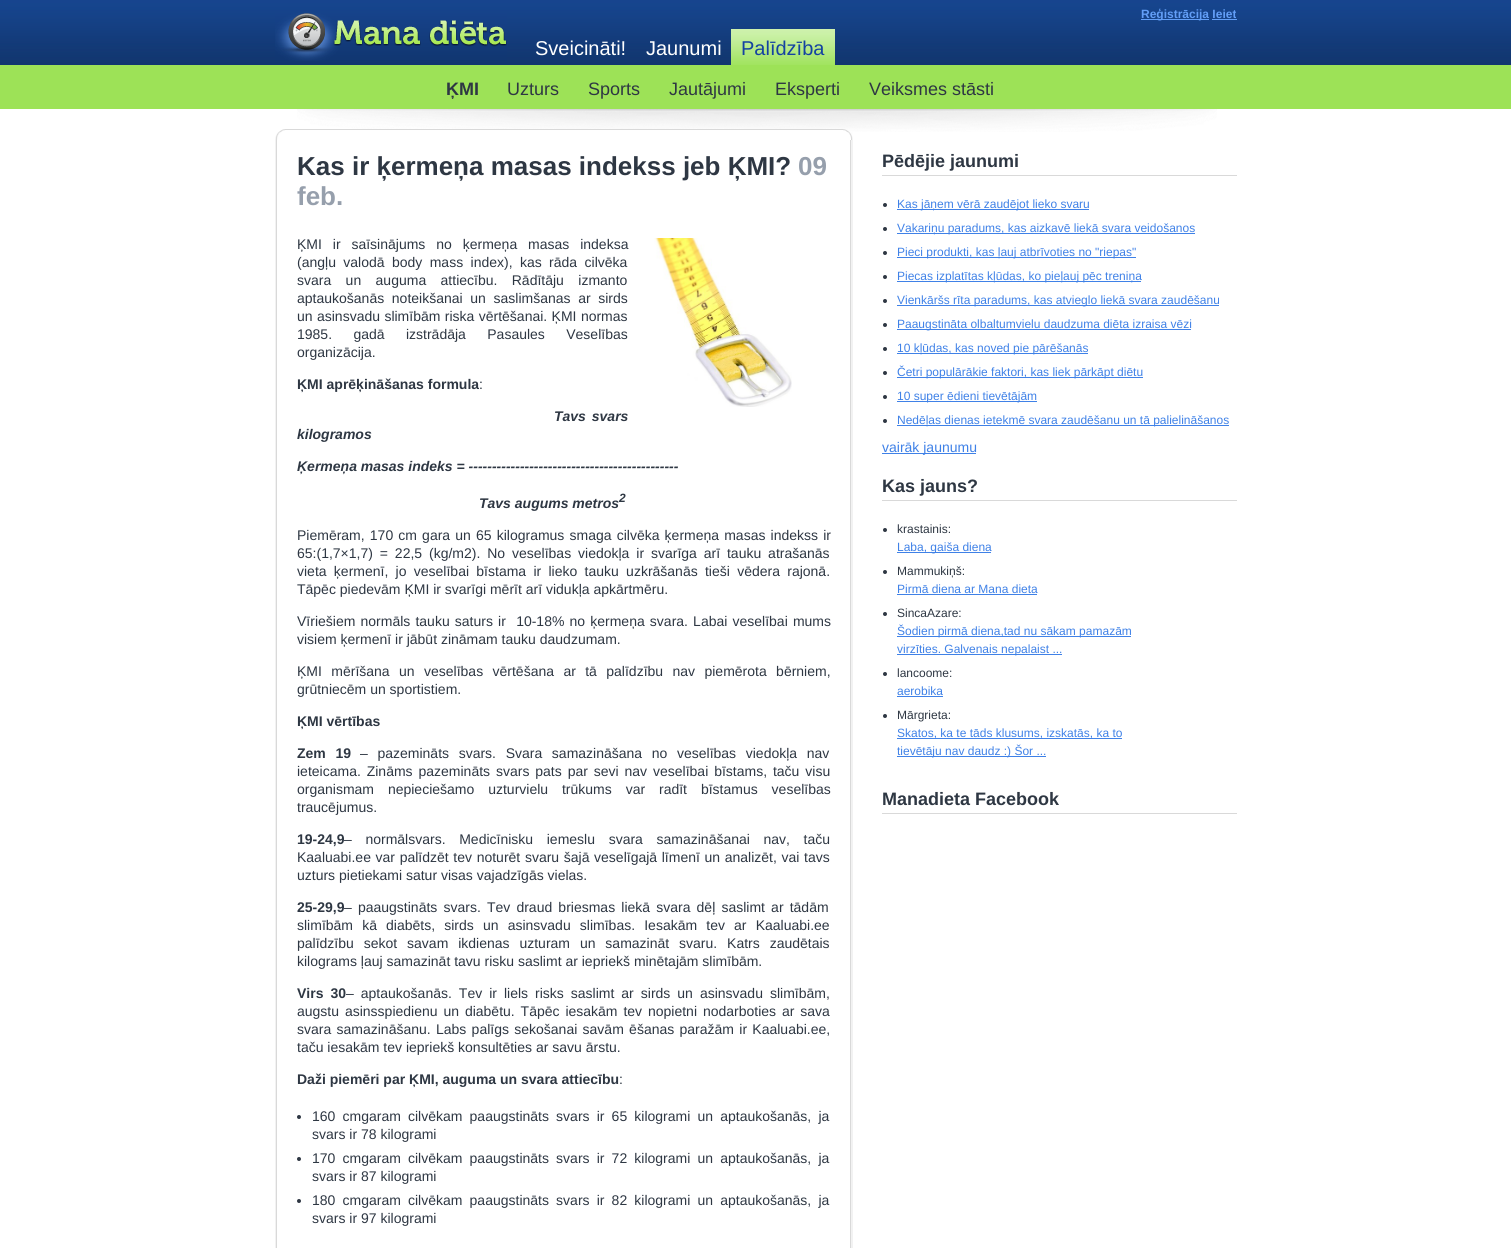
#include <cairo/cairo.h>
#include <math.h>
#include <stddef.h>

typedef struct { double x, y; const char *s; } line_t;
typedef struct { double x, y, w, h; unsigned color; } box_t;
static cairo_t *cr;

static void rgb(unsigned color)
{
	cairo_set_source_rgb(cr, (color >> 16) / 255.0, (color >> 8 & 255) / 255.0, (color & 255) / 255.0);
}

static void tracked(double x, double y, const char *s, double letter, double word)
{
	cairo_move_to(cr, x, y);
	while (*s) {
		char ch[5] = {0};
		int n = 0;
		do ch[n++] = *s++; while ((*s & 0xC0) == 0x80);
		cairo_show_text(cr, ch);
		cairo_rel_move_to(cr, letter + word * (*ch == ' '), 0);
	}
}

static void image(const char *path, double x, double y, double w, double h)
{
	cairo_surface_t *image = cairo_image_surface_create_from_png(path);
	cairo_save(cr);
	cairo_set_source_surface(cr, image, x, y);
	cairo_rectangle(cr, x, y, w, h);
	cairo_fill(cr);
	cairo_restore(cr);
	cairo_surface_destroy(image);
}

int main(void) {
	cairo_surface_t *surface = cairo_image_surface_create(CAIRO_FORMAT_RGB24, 1511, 1248);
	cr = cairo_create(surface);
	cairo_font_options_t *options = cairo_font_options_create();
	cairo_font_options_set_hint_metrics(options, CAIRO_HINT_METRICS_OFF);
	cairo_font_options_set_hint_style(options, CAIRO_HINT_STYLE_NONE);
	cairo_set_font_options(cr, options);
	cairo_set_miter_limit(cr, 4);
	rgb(0xffffff);
	cairo_paint(cr);
	image("img/1.png", 0, 0, 1511, 65);
	rgb(0x9de257);
	cairo_rectangle(cr, 0, 65, 1511, 44);
	cairo_fill(cr);
	image("img/2.png", 275, 13, 232, 48);
	image("img/3.png", 731, 29, 104, 36);
	rgb(0x639ef7);
	cairo_rectangle(cr, 1141, 19, 68, 1);
	cairo_fill(cr);
	cairo_rectangle(cr, 1212, 19, 25, 1);
	cairo_fill(cr);
	image("img/4.png", 297, 109, 920, 23);
	image("img/5.png", 275, 140, 578, 1108);
	image("img/6.png", 275, 129, 578, 11);
	image("img/7.png", 654, 238, 138, 169);
	rgb(0x2e3743);
	cairo_arc(cr, 299, 1117, 2, 0, 2 * M_PI);
	cairo_fill(cr);
	cairo_arc(cr, 299, 1159, 2, 0, 2 * M_PI);
	cairo_fill(cr);
	cairo_arc(cr, 299, 1201, 2, 0, 2 * M_PI);
	cairo_fill(cr);
	rgb(0xd9d9d9);
	cairo_rectangle(cr, 882, 175, 355, 1);
	cairo_fill(cr);
	rgb(0x2e3743);
	cairo_arc(cr, 885, 205, 2, 0, 2 * M_PI);
	cairo_fill(cr);
	rgb(0x3f81e7);
	cairo_rectangle(cr, 897, 209, 192, 1);
	cairo_fill(cr);
	rgb(0x2e3743);
	cairo_arc(cr, 885, 229, 2, 0, 2 * M_PI);
	cairo_fill(cr);
	rgb(0x3f81e7);
	cairo_rectangle(cr, 897, 233, 298, 1);
	cairo_fill(cr);
	rgb(0x2e3743);
	cairo_arc(cr, 885, 253, 2, 0, 2 * M_PI);
	cairo_fill(cr);
	rgb(0x3f81e7);
	cairo_rectangle(cr, 897, 257, 239, 1);
	cairo_fill(cr);
	rgb(0x2e3743);
	cairo_arc(cr, 885, 277, 2, 0, 2 * M_PI);
	cairo_fill(cr);
	rgb(0x3f81e7);
	cairo_rectangle(cr, 897, 281, 244, 1);
	cairo_fill(cr);
	rgb(0x2e3743);
	cairo_arc(cr, 885, 301, 2, 0, 2 * M_PI);
	cairo_fill(cr);
	rgb(0x3f81e7);
	cairo_rectangle(cr, 897, 305, 322, 1);
	cairo_fill(cr);
	rgb(0x2e3743);
	cairo_arc(cr, 885, 325, 2, 0, 2 * M_PI);
	cairo_fill(cr);
	rgb(0x3f81e7);
	cairo_rectangle(cr, 897, 329, 294, 1);
	cairo_fill(cr);
	rgb(0x2e3743);
	cairo_arc(cr, 885, 349, 2, 0, 2 * M_PI);
	cairo_fill(cr);
	rgb(0x3f81e7);
	cairo_rectangle(cr, 897, 353, 191, 1);
	cairo_fill(cr);
	rgb(0x2e3743);
	cairo_arc(cr, 885, 373, 2, 0, 2 * M_PI);
	cairo_fill(cr);
	rgb(0x3f81e7);
	cairo_rectangle(cr, 897, 377, 246, 1);
	cairo_fill(cr);
	rgb(0x2e3743);
	cairo_arc(cr, 885, 397, 2, 0, 2 * M_PI);
	cairo_fill(cr);
	rgb(0x3f81e7);
	cairo_rectangle(cr, 897, 401, 140, 1);
	cairo_fill(cr);
	rgb(0x2e3743);
	cairo_arc(cr, 885, 421, 2, 0, 2 * M_PI);
	cairo_fill(cr);
	{
		static const box_t items[] = {
			{897, 425, 332, 1, 0x3f81e7},
			{882, 453, 94, 1, 0x3f81e7},
			{882, 500, 355, 1, 0xd9d9d9},
		};
		for (size_t i = 0; i < sizeof items / sizeof *items; i++) {
			rgb(items[i].color);
			cairo_rectangle(cr, items[i].x, items[i].y, items[i].w, items[i].h);
			cairo_fill(cr);
		}
	}
	rgb(0x2e3743);
	cairo_arc(cr, 885, 530, 2, 0, 2 * M_PI);
	cairo_fill(cr);
	rgb(0x3f81e7);
	cairo_rectangle(cr, 897, 552, 94, 1);
	cairo_fill(cr);
	rgb(0x2e3743);
	cairo_arc(cr, 885, 572, 2, 0, 2 * M_PI);
	cairo_fill(cr);
	rgb(0x3f81e7);
	cairo_rectangle(cr, 897, 594, 140, 1);
	cairo_fill(cr);
	rgb(0x2e3743);
	cairo_arc(cr, 885, 614, 2, 0, 2 * M_PI);
	cairo_fill(cr);
	rgb(0x3f81e7);
	cairo_rectangle(cr, 897, 636, 234, 1);
	cairo_fill(cr);
	cairo_rectangle(cr, 897, 654, 165, 1);
	cairo_fill(cr);
	rgb(0x2e3743);
	cairo_arc(cr, 885, 674, 2, 0, 2 * M_PI);
	cairo_fill(cr);
	rgb(0x3f81e7);
	cairo_rectangle(cr, 897, 696, 46, 1);
	cairo_fill(cr);
	rgb(0x2e3743);
	cairo_arc(cr, 885, 716, 2, 0, 2 * M_PI);
	cairo_fill(cr);
	{
		static const box_t items[] = {
			{897, 738, 225, 1, 0x3f81e7},
			{897, 756, 149, 1, 0x3f81e7},
			{882, 813, 355, 1, 0xd9d9d9},
		};
		for (size_t i = 0; i < sizeof items / sizeof *items; i++) {
			rgb(items[i].color);
			cairo_rectangle(cr, items[i].x, items[i].y, items[i].w, items[i].h);
			cairo_fill(cr);
		}
	}
	cairo_select_font_face(cr, "Liberation Sans", CAIRO_FONT_SLANT_NORMAL, CAIRO_FONT_WEIGHT_NORMAL);
	cairo_set_font_size(cr, 20);
	rgb(0xffffff);
	cairo_move_to(cr, 535, 55);
	cairo_show_text(cr, "Sveicināti!");
	cairo_move_to(cr, 646, 55);
	cairo_show_text(cr, "Jaunumi");
	rgb(0x1442a1);
	cairo_move_to(cr, 741, 55);
	cairo_show_text(cr, "Palīdzība");
	cairo_select_font_face(cr, "Liberation Sans", CAIRO_FONT_SLANT_NORMAL, CAIRO_FONT_WEIGHT_BOLD);
	cairo_set_font_size(cr, 12);
	rgb(0x639ef7);
	cairo_move_to(cr, 1141, 18);
	cairo_show_text(cr, "Reģistrācija Ieiet");
	cairo_set_font_size(cr, 18);
	rgb(0x2e3743);
	cairo_move_to(cr, 446, 95);
	cairo_show_text(cr, "ĶMI");
	cairo_select_font_face(cr, "Liberation Sans", CAIRO_FONT_SLANT_NORMAL, CAIRO_FONT_WEIGHT_NORMAL);
	{
		static const line_t items[] = {
			{507, 95, "Uzturs"},
			{588, 95, "Sports"},
			{669, 95, "Jautājumi"},
			{775, 95, "Eksperti"},
			{869, 95, "Veiksmes stāsti"},
		};
		for (size_t i = 0; i < sizeof items / sizeof *items; i++) {
			cairo_move_to(cr, items[i].x, items[i].y);
			cairo_show_text(cr, items[i].s);
		}
	}
	cairo_select_font_face(cr, "Liberation Sans", CAIRO_FONT_SLANT_NORMAL, CAIRO_FONT_WEIGHT_BOLD);
	cairo_set_font_size(cr, 26);
	cairo_move_to(cr, 297, 175);
	cairo_show_text(cr, "Kas ir ķermeņa masas indekss jeb ĶMI?");
	rgb(0x969fac);
	cairo_move_to(cr, 798, 175);
	cairo_show_text(cr, "09");
	cairo_move_to(cr, 297, 205);
	cairo_show_text(cr, "feb.");
	cairo_select_font_face(cr, "Liberation Sans", CAIRO_FONT_SLANT_NORMAL, CAIRO_FONT_WEIGHT_NORMAL);
	cairo_set_font_size(cr, 14);
	rgb(0x2e3743);
	tracked(297, 249, "ĶMI ir saīsinājums no ķermeņa masas indeksa", 0, 7);
	tracked(297, 267, "(angļu valodā body mass index), kas rāda cilvēka", 0, 3.5);
	tracked(297, 285, "svara un auguma attiecību. Rādītāju izmanto", 0, 10.5);
	tracked(297, 303, "aptaukošanās noteikšanai un saslimšanas ar sirds", 0, 3.75);
	tracked(297, 321, "un asinsvadu slimībām riska vērtēšanai. ĶMI normas", 0, 0.5);
	tracked(297, 339, "1985. gadā izstrādāja Pasaules Veselības", 0, 17.5);
	cairo_move_to(cr, 297, 357);
	cairo_show_text(cr, "organizācija.");
	cairo_select_font_face(cr, "Liberation Sans", CAIRO_FONT_SLANT_NORMAL, CAIRO_FONT_WEIGHT_BOLD);
	cairo_move_to(cr, 297, 389);
	cairo_show_text(cr, "ĶMI aprēķināšanas formula");
	cairo_select_font_face(cr, "Liberation Sans", CAIRO_FONT_SLANT_NORMAL, CAIRO_FONT_WEIGHT_NORMAL);
	cairo_move_to(cr, 479, 389);
	cairo_show_text(cr, ":");
	cairo_select_font_face(cr, "Liberation Sans", CAIRO_FONT_SLANT_ITALIC, CAIRO_FONT_WEIGHT_BOLD);
	tracked(554, 421, "Tavs svars", 0, 2);
	{
		static const line_t items[] = {
			{297, 439, "kilogramos"},
			{297, 471, "Ķermeņa masas indeks = ---------------------------------------------"},
			{479, 508, "Tavs augums metros"},
		};
		for (size_t i = 0; i < sizeof items / sizeof *items; i++) {
			cairo_move_to(cr, items[i].x, items[i].y);
			cairo_show_text(cr, items[i].s);
		}
	}
	cairo_set_font_size(cr, 12);
	cairo_move_to(cr, 619, 502);
	cairo_show_text(cr, "2");
	cairo_select_font_face(cr, "Liberation Sans", CAIRO_FONT_SLANT_NORMAL, CAIRO_FONT_WEIGHT_NORMAL);
	cairo_set_font_size(cr, 14);
	tracked(297, 540, "Piemēram, 170 cm gara un 65 kilogramus smaga cilvēka ķermeņa masas indekss ir", 0, 1.25);
	tracked(297, 558, "65:(1,7×1,7) = 22,5 (kg/m2). No veselības viedokļa ir svarīga arī tauku atrašanās", 0, 3);
	tracked(297, 576, "vieta ķermenī, jo veselībai bīstama ir lieko tauku uzkrāšanās tieši vēdera rajonā.", 0, 3.4);
	cairo_move_to(cr, 297, 594);
	cairo_show_text(cr, "Tāpēc piedevām ĶMI ir svarīgi mērīt arī vidukļa apkārtmēru.");
	tracked(297, 626, "Vīriešiem normāls tauku saturs ir  10-18% no ķermeņa svara. Labai veselībai mums", 0, 1.25);
	cairo_move_to(cr, 297, 644);
	cairo_show_text(cr, "visiem ķermenī ir jābūt zināmam tauku daudzumam.");
	tracked(297, 676, "ĶMI mērīšana un veselības vērtēšana ar tā palīdzību nav piemērota bērniem,", 0, 5.5);
	cairo_move_to(cr, 297, 694);
	cairo_show_text(cr, "grūtniecēm un sportistiem.");
	cairo_select_font_face(cr, "Liberation Sans", CAIRO_FONT_SLANT_NORMAL, CAIRO_FONT_WEIGHT_BOLD);
	cairo_move_to(cr, 297, 726);
	cairo_show_text(cr, "ĶMI vērtības");
	tracked(297, 758, "Zem 19", 0, 5.75);
	cairo_select_font_face(cr, "Liberation Sans", CAIRO_FONT_SLANT_NORMAL, CAIRO_FONT_WEIGHT_NORMAL);
	tracked(360, 758, "– pazemināts svars. Svara samazināšana no veselības viedokļa nav", 0, 5.75);
	tracked(297, 776, "ieteicama. Zināms pazemināts svars pats par sevi nav veselībai bīstams, taču visu", 0, 2);
	tracked(297, 794, "organismam nepieciešamo uzturvielu trūkums var radīt bīstamus veselības", 0, 10);
	cairo_move_to(cr, 297, 812);
	cairo_show_text(cr, "traucējumus.");
	cairo_select_font_face(cr, "Liberation Sans", CAIRO_FONT_SLANT_NORMAL, CAIRO_FONT_WEIGHT_BOLD);
	cairo_move_to(cr, 297, 844);
	cairo_show_text(cr, "19-24,9");
	cairo_select_font_face(cr, "Liberation Sans", CAIRO_FONT_SLANT_NORMAL, CAIRO_FONT_WEIGHT_NORMAL);
	tracked(344, 844, "– normālsvars. Medicīnisku iemeslu svara samazināšanai nav, taču", 0, 9.75);
	tracked(297, 862, "Kaaluabi.ee var palīdzēt tev noturēt svaru šajā veselīgajā līmenī un analizēt, vai tavs", 0, 0.75);
	cairo_move_to(cr, 297, 880);
	cairo_show_text(cr, "uzturs pietiekami satur visas vajadzīgās vielas.");
	cairo_select_font_face(cr, "Liberation Sans", CAIRO_FONT_SLANT_NORMAL, CAIRO_FONT_WEIGHT_BOLD);
	cairo_move_to(cr, 297, 912);
	cairo_show_text(cr, "25-29,9");
	cairo_select_font_face(cr, "Liberation Sans", CAIRO_FONT_SLANT_NORMAL, CAIRO_FONT_WEIGHT_NORMAL);
	tracked(344, 912, "– paaugstināts svars. Tev draud briesmas liekā svara dēļ saslimt ar tādām", 0, 2.25);
	tracked(297, 930, "slimībām kā diabēts, sirds un asinsvadu slimības. Iesakām tev ar Kaaluabi.ee", 0, 5.25);
	tracked(297, 948, "palīdzību sekot savam ikdienas uzturam un samazināt svaru. Katrs zaudētais", 0, 6);
	cairo_move_to(cr, 297, 966);
	cairo_show_text(cr, "kilograms ļauj samazināt tavu risku saslimt ar iepriekš minētajām slimībām.");
	cairo_select_font_face(cr, "Liberation Sans", CAIRO_FONT_SLANT_NORMAL, CAIRO_FONT_WEIGHT_BOLD);
	tracked(297, 998, "Virs 30", 0, 3.1);
	cairo_select_font_face(cr, "Liberation Sans", CAIRO_FONT_SLANT_NORMAL, CAIRO_FONT_WEIGHT_NORMAL);
	tracked(346, 998, "– aptaukošanās. Tev ir liels risks saslimt ar sirds un asinsvadu slimībām,", 0, 3.1);
	tracked(297, 1016, "augstu asinsspiedienu un diabētu. Tāpēc iesakām tev nopietni nodarboties ar sava", 0, 2);
	tracked(297, 1034, "svara samazināšanu. Labs palīgs sekošanai savām ēšanas paražām ir Kaaluabi.ee,", 0, 1.4);
	cairo_move_to(cr, 297, 1052);
	cairo_show_text(cr, "taču iesakām tev iepriekš konsultēties ar savu ārstu.");
	cairo_select_font_face(cr, "Liberation Sans", CAIRO_FONT_SLANT_NORMAL, CAIRO_FONT_WEIGHT_BOLD);
	cairo_move_to(cr, 297, 1084);
	cairo_show_text(cr, "Daži piemēri par ĶMI, auguma un svara attiecību");
	cairo_select_font_face(cr, "Liberation Sans", CAIRO_FONT_SLANT_NORMAL, CAIRO_FONT_WEIGHT_NORMAL);
	cairo_move_to(cr, 619, 1084);
	cairo_show_text(cr, ":");
	tracked(312, 1121, "160 cmgaram cilvēkam paaugstināts svars ir 65 kilogrami un aptaukošanās, ja", 0, 3.25);
	cairo_move_to(cr, 312, 1139);
	cairo_show_text(cr, "svars ir 78 kilogrami");
	tracked(312, 1163, "170 cmgaram cilvēkam paaugstināts svars ir 72 kilogrami un aptaukošanās, ja", 0, 3.25);
	cairo_move_to(cr, 312, 1181);
	cairo_show_text(cr, "svars ir 87 kilogrami");
	tracked(312, 1205, "180 cmgaram cilvēkam paaugstināts svars ir 82 kilogrami un aptaukošanās, ja", 0, 3.25);
	cairo_move_to(cr, 312, 1223);
	cairo_show_text(cr, "svars ir 97 kilogrami");
	cairo_select_font_face(cr, "Liberation Sans", CAIRO_FONT_SLANT_NORMAL, CAIRO_FONT_WEIGHT_BOLD);
	cairo_set_font_size(cr, 18);
	cairo_move_to(cr, 882, 167);
	cairo_show_text(cr, "Pēdējie jaunumi");
	cairo_select_font_face(cr, "Liberation Sans", CAIRO_FONT_SLANT_NORMAL, CAIRO_FONT_WEIGHT_NORMAL);
	cairo_set_font_size(cr, 12);
	rgb(0x3f81e7);
	{
		static const line_t items[] = {
			{897, 208, "Kas jāņem vērā zaudējot lieko svaru"},
			{897, 232, "Vakariņu paradums, kas aizkavē liekā svara veidošanos"},
			{897, 256, "Pieci produkti, kas ļauj atbrīvoties no \"riepas\""},
			{897, 280, "Piecas izplatītas kļūdas, ko pieļauj pēc treniņa"},
			{897, 304, "Vienkāršs rīta paradums, kas atvieglo liekā svara zaudēšanu"},
			{897, 328, "Paaugstināta olbaltumvielu daudzuma diēta izraisa vēzi"},
			{897, 352, "10 kļūdas, kas noved pie pārēšanās"},
			{897, 376, "Četri populārākie faktori, kas liek pārkāpt diētu"},
			{897, 400, "10 super ēdieni tievētājām"},
			{897, 424, "Nedēļas dienas ietekmē svara zaudēšanu un tā palielināšanos"},
		};
		for (size_t i = 0; i < sizeof items / sizeof *items; i++) {
			cairo_move_to(cr, items[i].x, items[i].y);
			cairo_show_text(cr, items[i].s);
		}
	}
	cairo_set_font_size(cr, 14);
	cairo_move_to(cr, 882, 452);
	cairo_show_text(cr, "vairāk jaunumu");
	cairo_select_font_face(cr, "Liberation Sans", CAIRO_FONT_SLANT_NORMAL, CAIRO_FONT_WEIGHT_BOLD);
	cairo_set_font_size(cr, 18);
	rgb(0x2e3743);
	cairo_move_to(cr, 882, 492);
	cairo_show_text(cr, "Kas jauns?");
	cairo_select_font_face(cr, "Liberation Sans", CAIRO_FONT_SLANT_NORMAL, CAIRO_FONT_WEIGHT_NORMAL);
	cairo_set_font_size(cr, 12);
	cairo_move_to(cr, 897, 533);
	cairo_show_text(cr, "krastainis:");
	rgb(0x3f81e7);
	cairo_move_to(cr, 897, 551);
	cairo_show_text(cr, "Laba, gaiša diena");
	rgb(0x2e3743);
	cairo_move_to(cr, 897, 575);
	cairo_show_text(cr, "Mammukiņš:");
	rgb(0x3f81e7);
	cairo_move_to(cr, 897, 593);
	cairo_show_text(cr, "Pirmā diena ar Mana dieta");
	rgb(0x2e3743);
	cairo_move_to(cr, 897, 617);
	cairo_show_text(cr, "SincaAzare:");
	rgb(0x3f81e7);
	cairo_move_to(cr, 897, 635);
	cairo_show_text(cr, "Šodien pirmā diena,tad nu sākam pamazām");
	cairo_move_to(cr, 897, 653);
	cairo_show_text(cr, "virzīties. Galvenais nepalaist ...");
	rgb(0x2e3743);
	cairo_move_to(cr, 897, 677);
	cairo_show_text(cr, "lancoome:");
	rgb(0x3f81e7);
	cairo_move_to(cr, 897, 695);
	cairo_show_text(cr, "aerobika");
	rgb(0x2e3743);
	cairo_move_to(cr, 897, 719);
	cairo_show_text(cr, "Mārgrieta:");
	rgb(0x3f81e7);
	cairo_move_to(cr, 897, 737);
	cairo_show_text(cr, "Skatos, ka te tāds klusums, izskatās, ka to");
	cairo_move_to(cr, 897, 755);
	cairo_show_text(cr, "tievētāju nav daudz :) Šor ...");
	cairo_select_font_face(cr, "Liberation Sans", CAIRO_FONT_SLANT_NORMAL, CAIRO_FONT_WEIGHT_BOLD);
	cairo_set_font_size(cr, 18);
	rgb(0x2e3743);
	cairo_move_to(cr, 882, 805);
	cairo_show_text(cr, "Manadieta Facebook");
	cairo_surface_write_to_png(surface, "page.png");
	cairo_font_options_destroy(options);
	cairo_destroy(cr);
	cairo_surface_destroy(surface);
	return 0;
}
